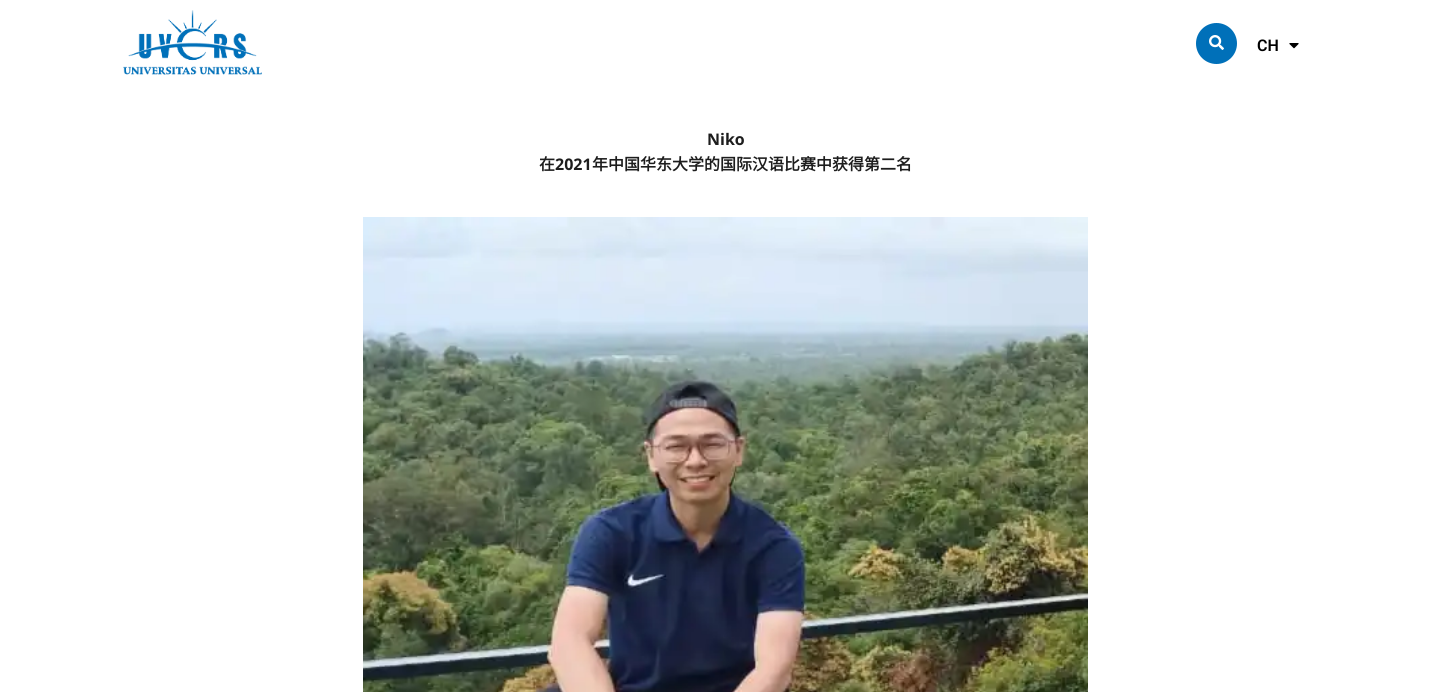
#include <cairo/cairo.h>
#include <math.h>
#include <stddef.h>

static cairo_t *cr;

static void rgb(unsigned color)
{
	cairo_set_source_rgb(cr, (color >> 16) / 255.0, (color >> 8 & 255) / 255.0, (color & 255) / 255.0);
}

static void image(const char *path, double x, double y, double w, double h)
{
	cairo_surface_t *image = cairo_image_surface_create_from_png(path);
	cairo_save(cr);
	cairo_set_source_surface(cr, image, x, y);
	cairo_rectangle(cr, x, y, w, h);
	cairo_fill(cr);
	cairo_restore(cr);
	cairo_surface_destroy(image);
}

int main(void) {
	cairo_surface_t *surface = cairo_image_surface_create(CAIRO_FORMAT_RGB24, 1451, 692);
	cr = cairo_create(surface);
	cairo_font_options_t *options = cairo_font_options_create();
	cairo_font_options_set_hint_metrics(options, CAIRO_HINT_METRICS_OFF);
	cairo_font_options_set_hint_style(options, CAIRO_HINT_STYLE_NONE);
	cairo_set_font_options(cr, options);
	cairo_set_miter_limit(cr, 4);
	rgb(0xffffff);
	cairo_paint(cr);
	image("img/1.png", 123, 10, 139, 65);
	rgb(0x0070b9);
	cairo_arc(cr, 1216.5, 43.5, 20.5, 0, 2 * M_PI);
	cairo_fill(cr);
	image("img/2.png", 1209, 35, 15, 15);
	image("img/3.png", 1289, 43, 10, 6);
	image("img/4.png", 363, 217, 725, 475);
	cairo_select_font_face(cr, "Roboto SemiBold", CAIRO_FONT_SLANT_NORMAL, CAIRO_FONT_WEIGHT_NORMAL);
	cairo_set_font_size(cr, 16);
	rgb(0x000000);
	cairo_move_to(cr, 1257, 51);
	cairo_show_text(cr, "CH");
	cairo_select_font_face(cr, "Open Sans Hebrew", CAIRO_FONT_SLANT_NORMAL, CAIRO_FONT_WEIGHT_BOLD);
	rgb(0x1d1d1d);
	cairo_move_to(cr, 707, 145);
	cairo_show_text(cr, "Niko");
	cairo_select_font_face(cr, "Noto Sans CJK SC", CAIRO_FONT_SLANT_NORMAL, CAIRO_FONT_WEIGHT_BOLD);
	cairo_move_to(cr, 539, 170);
	cairo_show_text(cr, "在");
	cairo_select_font_face(cr, "Open Sans Hebrew", CAIRO_FONT_SLANT_NORMAL, CAIRO_FONT_WEIGHT_BOLD);
	cairo_move_to(cr, 555, 170);
	cairo_show_text(cr, "2021");
	cairo_select_font_face(cr, "Noto Sans CJK SC", CAIRO_FONT_SLANT_NORMAL, CAIRO_FONT_WEIGHT_BOLD);
	cairo_move_to(cr, 592, 170);
	cairo_show_text(cr, "年中国华东大学的国际汉语比赛中获得第二名");
	cairo_surface_write_to_png(surface, "page.png");
	cairo_font_options_destroy(options);
	cairo_destroy(cr);
	cairo_surface_destroy(surface);
	return 0;
}
